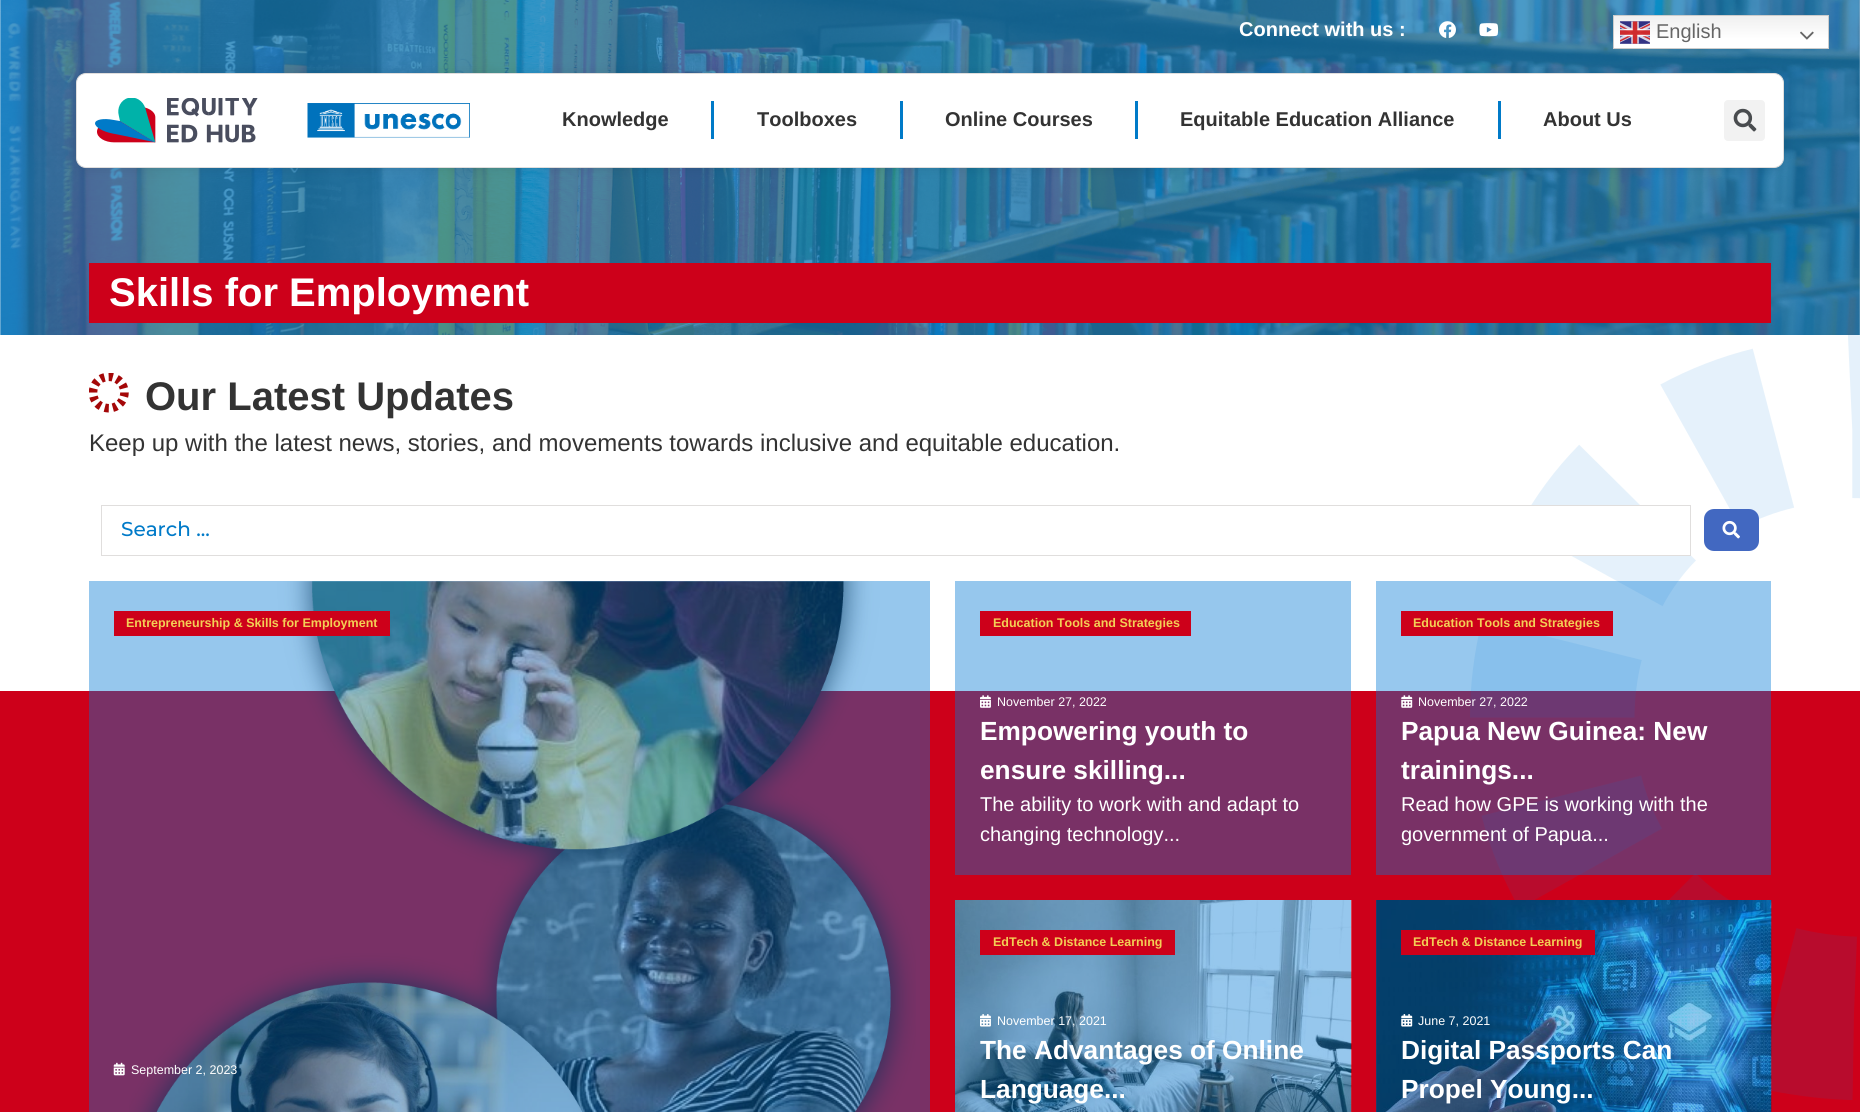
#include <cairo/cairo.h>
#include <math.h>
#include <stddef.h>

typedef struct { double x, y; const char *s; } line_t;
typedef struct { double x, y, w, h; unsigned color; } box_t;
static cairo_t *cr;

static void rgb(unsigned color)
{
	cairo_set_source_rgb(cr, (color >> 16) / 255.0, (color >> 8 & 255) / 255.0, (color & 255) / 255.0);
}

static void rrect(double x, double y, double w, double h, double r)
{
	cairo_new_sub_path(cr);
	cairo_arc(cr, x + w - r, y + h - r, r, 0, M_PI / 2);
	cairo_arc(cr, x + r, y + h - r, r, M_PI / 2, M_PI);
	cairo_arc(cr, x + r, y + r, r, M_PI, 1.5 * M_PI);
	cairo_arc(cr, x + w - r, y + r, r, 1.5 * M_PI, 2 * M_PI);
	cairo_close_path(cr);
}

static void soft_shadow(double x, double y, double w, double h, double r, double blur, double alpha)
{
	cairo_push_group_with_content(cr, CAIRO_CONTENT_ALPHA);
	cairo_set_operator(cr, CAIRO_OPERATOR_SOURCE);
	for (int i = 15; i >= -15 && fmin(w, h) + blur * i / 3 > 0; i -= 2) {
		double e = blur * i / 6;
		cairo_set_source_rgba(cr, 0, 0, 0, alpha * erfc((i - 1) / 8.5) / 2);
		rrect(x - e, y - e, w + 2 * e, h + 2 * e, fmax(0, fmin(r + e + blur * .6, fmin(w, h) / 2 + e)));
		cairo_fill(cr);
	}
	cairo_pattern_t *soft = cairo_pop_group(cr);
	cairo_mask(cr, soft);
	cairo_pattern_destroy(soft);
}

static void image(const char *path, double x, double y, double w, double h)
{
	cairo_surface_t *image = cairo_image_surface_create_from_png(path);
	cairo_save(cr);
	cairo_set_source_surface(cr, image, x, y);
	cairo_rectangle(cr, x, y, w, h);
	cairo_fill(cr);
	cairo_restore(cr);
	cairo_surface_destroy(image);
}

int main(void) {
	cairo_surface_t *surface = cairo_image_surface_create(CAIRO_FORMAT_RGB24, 1860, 1112);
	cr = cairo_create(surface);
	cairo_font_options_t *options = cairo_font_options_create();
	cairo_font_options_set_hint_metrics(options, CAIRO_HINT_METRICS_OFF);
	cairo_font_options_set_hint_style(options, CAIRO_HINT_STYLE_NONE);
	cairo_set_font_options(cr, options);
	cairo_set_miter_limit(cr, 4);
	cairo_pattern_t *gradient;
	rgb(0xffffff);
	cairo_paint(cr);
	rgb(0x96c7ed);
	cairo_rectangle(cr, 955, 581, 396, 110);
	cairo_fill(cr);
	cairo_rectangle(cr, 89, 581, 841, 110);
	cairo_fill(cr);
	image("img/8.png", 0, 0, 1860, 335);
	image("img/1.png", 1439, 21, 17, 17);
	image("img/2.png", 1479, 23, 20, 14);
	gradient = cairo_pattern_create_linear(1721, 15, 1721, 49);
	cairo_pattern_add_color_stop_rgba(gradient, 0, 0.937, 0.937, 0.937, 1);
	cairo_pattern_add_color_stop_rgba(gradient, 0.7, 1, 1, 1, 1);
	cairo_set_source(cr, gradient);
	cairo_pattern_destroy(gradient);
	cairo_rectangle(cr, 1614, 16, 214, 32);
	cairo_fill(cr);
	cairo_rectangle(cr, 1613.5, 15.5, 215, 33);
	rgb(0xcccccc);
	cairo_set_line_width(cr, 1);
	cairo_stroke(cr);
	image("img/3.png", 1620, 21, 30, 23);
	image("img/4.png", 1800, 31, 14, 9);
	rgb(0x000000);
	soft_shadow(76, 73, 1708, 95, 10, 6, 0.1);
	rgb(0xffffff);
	rrect(76.5, 73.5, 1707, 94, 9.5);
	cairo_fill_preserve(cr);
	rgb(0xe0dedd);
	cairo_stroke(cr);
	image("img/5.png", 95, 98, 163, 45);
	image("img/6.png", 307, 103, 163, 35);
	{
		static const box_t items[] = {
			{711, 101, 3, 38, 0x007ac8},
			{900, 101, 3, 38, 0x007ac8},
			{1135, 101, 3, 38, 0x007ac8},
			{1498, 101, 3, 38, 0x007ac8},
		};
		for (size_t i = 0; i < sizeof items / sizeof *items; i++) {
			rgb(items[i].color);
			cairo_rectangle(cr, items[i].x, items[i].y, items[i].w, items[i].h);
			cairo_fill(cr);
		}
	}
	rgb(0xf2f2f2);
	rrect(1724, 100, 41, 41, 4);
	cairo_fill(cr);
	image("img/7.png", 1733, 108, 24, 24);
	{
		static const box_t items[] = {
			{89, 263, 1682, 60, 0xcd001a},
			{0, 691, 1860, 421, 0xcd001a},
			{955, 691, 396, 184, 0x793166},
			{89, 691, 841, 421, 0x793166},
		};
		for (size_t i = 0; i < sizeof items / sizeof *items; i++) {
			rgb(items[i].color);
			cairo_rectangle(cr, items[i].x, items[i].y, items[i].w, items[i].h);
			cairo_fill(cr);
		}
	}
	image("img/9.png", 1470, 335, 390, 765);
	image("img/10.png", 89, 373, 40, 40);
	rgb(0xffffff);
	cairo_rectangle(cr, 1518, 506, 172, 49);
	cairo_fill(cr);
	cairo_rectangle(cr, 101.5, 505.5, 1589, 50);
	rgb(0xe0dedd);
	cairo_stroke(cr);
	rgb(0x4268c1);
	rrect(1704, 509, 55, 42, 10);
	cairo_fill(cr);
	image("img/11.png", 1722, 520, 18, 19);
	image("img/12.png", 129, 581, 787, 531);
	rgb(0xcd001a);
	cairo_rectangle(cr, 114, 611, 276, 25);
	cairo_fill(cr);
	image("img/13.png", 113, 1062, 12, 14);
	cairo_rectangle(cr, 980, 611, 211, 25);
	cairo_fill(cr);
	image("img/14.png", 980, 695, 11, 13);
	cairo_set_source_rgba(cr, 0, 0.467, 0.831, 0.41);
	cairo_rectangle(cr, 1376, 581, 395, 294);
	cairo_fill(cr);
	rgb(0xcd001a);
	cairo_rectangle(cr, 1401, 611, 212, 25);
	cairo_fill(cr);
	image("img/15.png", 1401, 695, 12, 13);
	image("img/16.png", 955, 900, 397, 212);
	cairo_rectangle(cr, 980, 930, 195, 25);
	cairo_fill(cr);
	image("img/17.png", 980, 1014, 11, 13);
	image("img/18.png", 1376, 900, 396, 212);
	cairo_set_source_rgba(cr, 0, 0.467, 0.831, 0.41);
	cairo_rectangle(cr, 1376, 900, 395, 212);
	cairo_fill(cr);
	rgb(0xcd001a);
	cairo_rectangle(cr, 1401, 930, 194, 25);
	cairo_fill(cr);
	image("img/19.png", 1401, 1014, 12, 13);
	cairo_select_font_face(cr, "Liberation Sans", CAIRO_FONT_SLANT_NORMAL, CAIRO_FONT_WEIGHT_BOLD);
	cairo_set_font_size(cr, 20);
	rgb(0xffffff);
	cairo_move_to(cr, 1239, 36);
	cairo_show_text(cr, "Connect with us :");
	cairo_select_font_face(cr, "Liberation Sans", CAIRO_FONT_SLANT_NORMAL, CAIRO_FONT_WEIGHT_NORMAL);
	rgb(0x666666);
	cairo_move_to(cr, 1656, 38);
	cairo_show_text(cr, "English");
	cairo_select_font_face(cr, "Liberation Sans", CAIRO_FONT_SLANT_NORMAL, CAIRO_FONT_WEIGHT_BOLD);
	rgb(0x333333);
	{
		static const line_t items[] = {
			{562, 126, "Knowledge"},
			{757, 126, "Toolboxes"},
			{945, 126, "Online Courses"},
			{1180, 126, "Equitable Education Alliance"},
			{1543, 126, "About Us"},
		};
		for (size_t i = 0; i < sizeof items / sizeof *items; i++) {
			cairo_move_to(cr, items[i].x, items[i].y);
			cairo_show_text(cr, items[i].s);
		}
	}
	cairo_set_font_size(cr, 40);
	rgb(0xffffff);
	cairo_move_to(cr, 109, 306);
	cairo_show_text(cr, "Skills for Employment");
	rgb(0x333333);
	cairo_move_to(cr, 145, 410);
	cairo_show_text(cr, "Our Latest Updates");
	cairo_select_font_face(cr, "Liberation Sans", CAIRO_FONT_SLANT_NORMAL, CAIRO_FONT_WEIGHT_NORMAL);
	cairo_set_font_size(cr, 24);
	cairo_move_to(cr, 89, 451);
	cairo_show_text(cr, "Keep up with the latest news, stories, and movements towards inclusive and equitable education.");
	cairo_select_font_face(cr, "Montserrat Medium", CAIRO_FONT_SLANT_NORMAL, CAIRO_FONT_WEIGHT_NORMAL);
	cairo_set_font_size(cr, 20);
	rgb(0x007ac8);
	cairo_move_to(cr, 121, 536);
	cairo_show_text(cr, "Search ...");
	cairo_select_font_face(cr, "Liberation Sans", CAIRO_FONT_SLANT_NORMAL, CAIRO_FONT_WEIGHT_BOLD);
	cairo_set_font_size(cr, 12.5);
	rgb(0xf3cf55);
	cairo_move_to(cr, 126, 627);
	cairo_show_text(cr, "Entrepreneurship & Skills for Employment");
	cairo_select_font_face(cr, "Liberation Sans", CAIRO_FONT_SLANT_NORMAL, CAIRO_FONT_WEIGHT_NORMAL);
	rgb(0xffffff);
	cairo_move_to(cr, 131, 1074);
	cairo_show_text(cr, "September 2, 2023");
	cairo_select_font_face(cr, "Liberation Sans", CAIRO_FONT_SLANT_NORMAL, CAIRO_FONT_WEIGHT_BOLD);
	rgb(0xf3cf55);
	cairo_move_to(cr, 993, 627);
	cairo_show_text(cr, "Education Tools and Strategies");
	cairo_select_font_face(cr, "Liberation Sans", CAIRO_FONT_SLANT_NORMAL, CAIRO_FONT_WEIGHT_NORMAL);
	rgb(0xffffff);
	cairo_move_to(cr, 997, 706);
	cairo_show_text(cr, "November 27, 2022");
	cairo_select_font_face(cr, "Liberation Sans", CAIRO_FONT_SLANT_NORMAL, CAIRO_FONT_WEIGHT_BOLD);
	cairo_set_font_size(cr, 26.25);
	cairo_move_to(cr, 980, 740);
	cairo_show_text(cr, "Empowering youth to");
	cairo_move_to(cr, 980, 779);
	cairo_show_text(cr, "ensure skilling...");
	cairo_select_font_face(cr, "Liberation Sans", CAIRO_FONT_SLANT_NORMAL, CAIRO_FONT_WEIGHT_NORMAL);
	cairo_set_font_size(cr, 20);
	cairo_move_to(cr, 980, 811);
	cairo_show_text(cr, "The ability to work with and adapt to");
	cairo_move_to(cr, 980, 841);
	cairo_show_text(cr, "changing technology...");
	cairo_select_font_face(cr, "Liberation Sans", CAIRO_FONT_SLANT_NORMAL, CAIRO_FONT_WEIGHT_BOLD);
	cairo_set_font_size(cr, 12.5);
	rgb(0xf3cf55);
	cairo_move_to(cr, 1413, 627);
	cairo_show_text(cr, "Education Tools and Strategies");
	cairo_select_font_face(cr, "Liberation Sans", CAIRO_FONT_SLANT_NORMAL, CAIRO_FONT_WEIGHT_NORMAL);
	rgb(0xffffff);
	cairo_move_to(cr, 1418, 706);
	cairo_show_text(cr, "November 27, 2022");
	cairo_select_font_face(cr, "Liberation Sans", CAIRO_FONT_SLANT_NORMAL, CAIRO_FONT_WEIGHT_BOLD);
	cairo_set_font_size(cr, 26.25);
	cairo_move_to(cr, 1401, 740);
	cairo_show_text(cr, "Papua New Guinea: New");
	cairo_move_to(cr, 1401, 779);
	cairo_show_text(cr, "trainings...");
	cairo_select_font_face(cr, "Liberation Sans", CAIRO_FONT_SLANT_NORMAL, CAIRO_FONT_WEIGHT_NORMAL);
	cairo_set_font_size(cr, 20);
	cairo_move_to(cr, 1401, 811);
	cairo_show_text(cr, "Read how GPE is working with the");
	cairo_move_to(cr, 1401, 841);
	cairo_show_text(cr, "government of Papua...");
	cairo_select_font_face(cr, "Liberation Sans", CAIRO_FONT_SLANT_NORMAL, CAIRO_FONT_WEIGHT_BOLD);
	cairo_set_font_size(cr, 12.5);
	rgb(0xf3cf55);
	cairo_move_to(cr, 993, 946);
	cairo_show_text(cr, "EdTech & Distance Learning");
	cairo_select_font_face(cr, "Liberation Sans", CAIRO_FONT_SLANT_NORMAL, CAIRO_FONT_WEIGHT_NORMAL);
	rgb(0xffffff);
	cairo_move_to(cr, 997, 1025);
	cairo_show_text(cr, "November 17, 2021");
	cairo_select_font_face(cr, "Liberation Sans", CAIRO_FONT_SLANT_NORMAL, CAIRO_FONT_WEIGHT_BOLD);
	cairo_set_font_size(cr, 26.25);
	cairo_move_to(cr, 980, 1059);
	cairo_show_text(cr, "The Advantages of Online");
	cairo_move_to(cr, 980, 1098);
	cairo_show_text(cr, "Language...");
	cairo_set_font_size(cr, 12.5);
	rgb(0xf3cf55);
	cairo_move_to(cr, 1413, 946);
	cairo_show_text(cr, "EdTech & Distance Learning");
	cairo_select_font_face(cr, "Liberation Sans", CAIRO_FONT_SLANT_NORMAL, CAIRO_FONT_WEIGHT_NORMAL);
	rgb(0xffffff);
	cairo_move_to(cr, 1418, 1025);
	cairo_show_text(cr, "June 7, 2021");
	cairo_select_font_face(cr, "Liberation Sans", CAIRO_FONT_SLANT_NORMAL, CAIRO_FONT_WEIGHT_BOLD);
	cairo_set_font_size(cr, 26.25);
	cairo_move_to(cr, 1401, 1059);
	cairo_show_text(cr, "Digital Passports Can");
	cairo_move_to(cr, 1401, 1098);
	cairo_show_text(cr, "Propel Young...");
	cairo_surface_write_to_png(surface, "page.png");
	cairo_font_options_destroy(options);
	cairo_destroy(cr);
	cairo_surface_destroy(surface);
	return 0;
}
